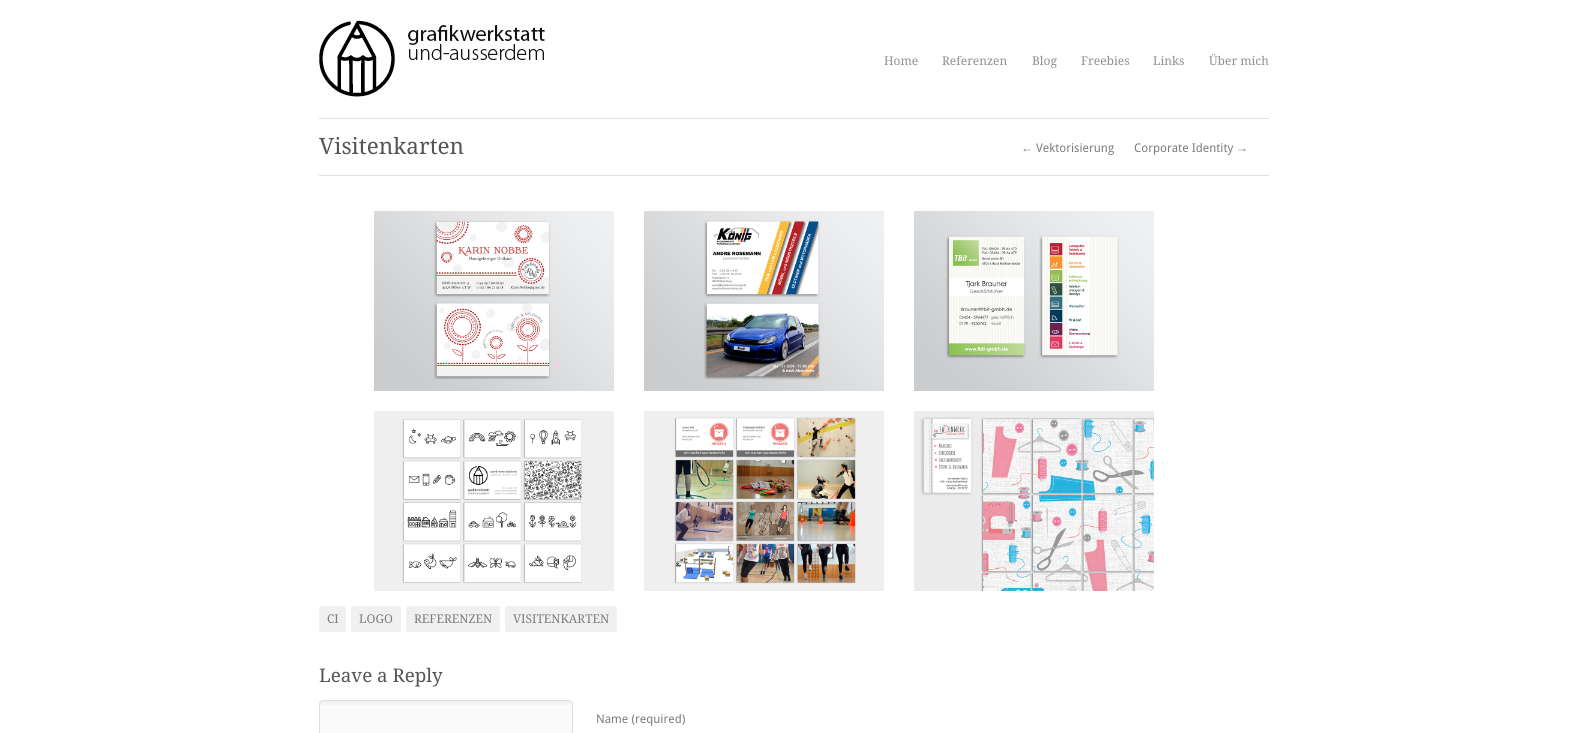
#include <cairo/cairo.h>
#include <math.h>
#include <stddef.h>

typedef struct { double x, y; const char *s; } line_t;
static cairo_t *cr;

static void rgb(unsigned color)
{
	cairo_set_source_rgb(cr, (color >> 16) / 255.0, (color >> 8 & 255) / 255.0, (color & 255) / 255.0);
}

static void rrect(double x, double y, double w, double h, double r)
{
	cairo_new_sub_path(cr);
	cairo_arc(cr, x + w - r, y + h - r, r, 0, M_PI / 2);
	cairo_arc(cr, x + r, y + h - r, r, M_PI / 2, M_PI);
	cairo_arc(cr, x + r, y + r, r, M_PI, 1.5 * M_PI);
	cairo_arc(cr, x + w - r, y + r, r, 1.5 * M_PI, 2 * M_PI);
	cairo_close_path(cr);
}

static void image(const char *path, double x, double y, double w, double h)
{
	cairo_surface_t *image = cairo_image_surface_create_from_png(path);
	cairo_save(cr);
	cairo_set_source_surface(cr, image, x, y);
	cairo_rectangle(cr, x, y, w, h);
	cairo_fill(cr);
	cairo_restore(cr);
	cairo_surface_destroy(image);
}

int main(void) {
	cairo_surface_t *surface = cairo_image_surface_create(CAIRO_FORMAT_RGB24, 1587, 733);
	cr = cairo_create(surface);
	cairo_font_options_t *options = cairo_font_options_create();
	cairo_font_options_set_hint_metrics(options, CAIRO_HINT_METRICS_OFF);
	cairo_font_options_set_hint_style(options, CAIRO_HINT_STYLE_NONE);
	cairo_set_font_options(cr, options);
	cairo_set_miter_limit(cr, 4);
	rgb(0xffffff);
	cairo_paint(cr);
	image("img/1.png", 319, 20, 226, 77);
	rgb(0xdfdfde);
	cairo_rectangle(cr, 319, 118, 950, 1);
	cairo_fill(cr);
	cairo_rectangle(cr, 319, 175, 950, 1);
	cairo_fill(cr);
	image("img/2.png", 374, 211, 240, 180);
	image("img/3.png", 644, 211, 240, 180);
	image("img/4.png", 914, 211, 240, 180);
	image("img/5.png", 374, 411, 240, 180);
	image("img/6.png", 644, 411, 240, 180);
	image("img/7.png", 914, 411, 240, 180);
	rgb(0xf0f0f0);
	rrect(319, 606, 27, 26, 2);
	cairo_fill(cr);
	rrect(351, 606, 50, 26, 2);
	cairo_fill(cr);
	rrect(406, 606, 94, 26, 2);
	cairo_fill(cr);
	rrect(505, 606, 112, 26, 2);
	cairo_fill(cr);
	rgb(0xfafafa);
	rrect(319, 700, 254, 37, 5);
	cairo_fill(cr);
	cairo_set_source_rgba(cr, 0, 0, 0, 0.03);
	cairo_rectangle(cr, 319, 701, 254, 4);
	cairo_fill(cr);
	rrect(319.5, 700.5, 253, 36, 4.5);
	rgb(0xdddddd);
	cairo_set_line_width(cr, 1);
	cairo_stroke(cr);
	cairo_select_font_face(cr, "Droid Serif", CAIRO_FONT_SLANT_NORMAL, CAIRO_FONT_WEIGHT_NORMAL);
	cairo_set_font_size(cr, 12);
	rgb(0x8f8f8f);
	{
		static const line_t items[] = {
			{884, 65, "Home"},
			{942, 65, "Referenzen"},
			{1032, 65, "Blog"},
			{1081, 65, "Freebies"},
			{1153, 65, "Links"},
			{1209, 65, "Über mich"},
		};
		for (size_t i = 0; i < sizeof items / sizeof *items; i++) {
			cairo_move_to(cr, items[i].x, items[i].y);
			cairo_show_text(cr, items[i].s);
		}
	}
	cairo_set_font_size(cr, 22.5);
	rgb(0x555555);
	cairo_move_to(cr, 319, 154);
	cairo_show_text(cr, "Visitenkarten");
	cairo_select_font_face(cr, "Liberation Sans", CAIRO_FONT_SLANT_NORMAL, CAIRO_FONT_WEIGHT_NORMAL);
	cairo_set_font_size(cr, 12);
	rgb(0x7d7d7b);
	cairo_move_to(cr, 1021, 152);
	cairo_show_text(cr, "←");
	cairo_select_font_face(cr, "Droid Sans", CAIRO_FONT_SLANT_NORMAL, CAIRO_FONT_WEIGHT_NORMAL);
	cairo_move_to(cr, 1036, 152);
	cairo_show_text(cr, "Vektorisierung");
	cairo_move_to(cr, 1134, 152);
	cairo_show_text(cr, "Corporate Identity");
	cairo_select_font_face(cr, "Liberation Sans", CAIRO_FONT_SLANT_NORMAL, CAIRO_FONT_WEIGHT_NORMAL);
	cairo_move_to(cr, 1236, 152);
	cairo_show_text(cr, "→");
	cairo_select_font_face(cr, "Droid Serif", CAIRO_FONT_SLANT_NORMAL, CAIRO_FONT_WEIGHT_NORMAL);
	{
		static const line_t items[] = {
			{327, 623, "CI"},
			{359, 623, "LOGO"},
			{414, 623, "REFERENZEN"},
			{513, 623, "VISITENKARTEN"},
		};
		for (size_t i = 0; i < sizeof items / sizeof *items; i++) {
			cairo_move_to(cr, items[i].x, items[i].y);
			cairo_show_text(cr, items[i].s);
		}
	}
	cairo_set_font_size(cr, 18.75);
	rgb(0x555555);
	cairo_move_to(cr, 319, 682);
	cairo_show_text(cr, "Leave a Reply");
	cairo_select_font_face(cr, "Droid Sans", CAIRO_FONT_SLANT_NORMAL, CAIRO_FONT_WEIGHT_NORMAL);
	cairo_set_font_size(cr, 12);
	rgb(0x7d7d7b);
	cairo_move_to(cr, 596, 723);
	cairo_show_text(cr, "Name (required)");
	cairo_surface_write_to_png(surface, "page.png");
	cairo_font_options_destroy(options);
	cairo_destroy(cr);
	cairo_surface_destroy(surface);
	return 0;
}
